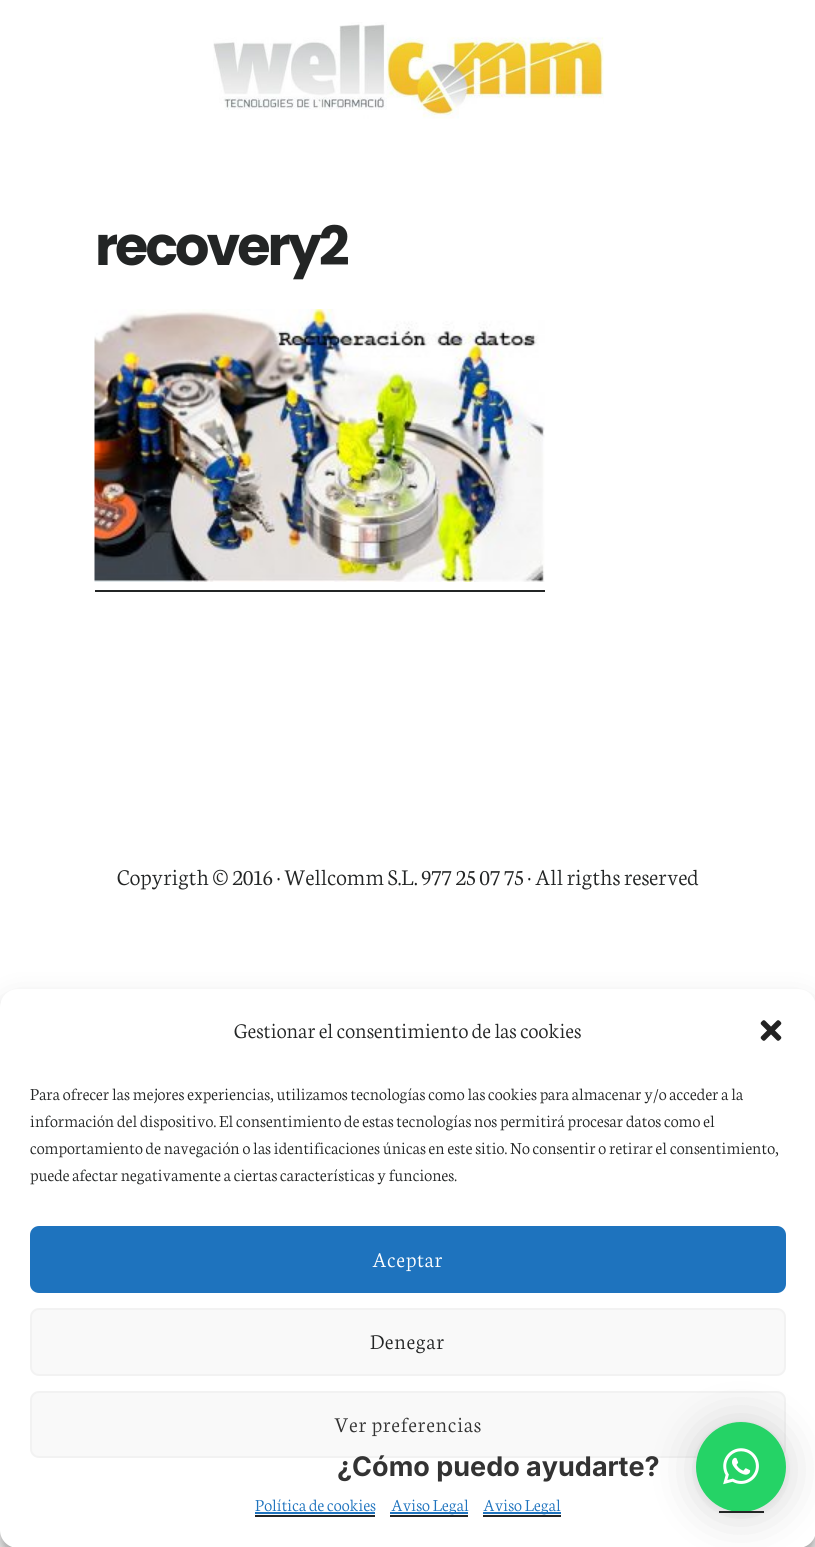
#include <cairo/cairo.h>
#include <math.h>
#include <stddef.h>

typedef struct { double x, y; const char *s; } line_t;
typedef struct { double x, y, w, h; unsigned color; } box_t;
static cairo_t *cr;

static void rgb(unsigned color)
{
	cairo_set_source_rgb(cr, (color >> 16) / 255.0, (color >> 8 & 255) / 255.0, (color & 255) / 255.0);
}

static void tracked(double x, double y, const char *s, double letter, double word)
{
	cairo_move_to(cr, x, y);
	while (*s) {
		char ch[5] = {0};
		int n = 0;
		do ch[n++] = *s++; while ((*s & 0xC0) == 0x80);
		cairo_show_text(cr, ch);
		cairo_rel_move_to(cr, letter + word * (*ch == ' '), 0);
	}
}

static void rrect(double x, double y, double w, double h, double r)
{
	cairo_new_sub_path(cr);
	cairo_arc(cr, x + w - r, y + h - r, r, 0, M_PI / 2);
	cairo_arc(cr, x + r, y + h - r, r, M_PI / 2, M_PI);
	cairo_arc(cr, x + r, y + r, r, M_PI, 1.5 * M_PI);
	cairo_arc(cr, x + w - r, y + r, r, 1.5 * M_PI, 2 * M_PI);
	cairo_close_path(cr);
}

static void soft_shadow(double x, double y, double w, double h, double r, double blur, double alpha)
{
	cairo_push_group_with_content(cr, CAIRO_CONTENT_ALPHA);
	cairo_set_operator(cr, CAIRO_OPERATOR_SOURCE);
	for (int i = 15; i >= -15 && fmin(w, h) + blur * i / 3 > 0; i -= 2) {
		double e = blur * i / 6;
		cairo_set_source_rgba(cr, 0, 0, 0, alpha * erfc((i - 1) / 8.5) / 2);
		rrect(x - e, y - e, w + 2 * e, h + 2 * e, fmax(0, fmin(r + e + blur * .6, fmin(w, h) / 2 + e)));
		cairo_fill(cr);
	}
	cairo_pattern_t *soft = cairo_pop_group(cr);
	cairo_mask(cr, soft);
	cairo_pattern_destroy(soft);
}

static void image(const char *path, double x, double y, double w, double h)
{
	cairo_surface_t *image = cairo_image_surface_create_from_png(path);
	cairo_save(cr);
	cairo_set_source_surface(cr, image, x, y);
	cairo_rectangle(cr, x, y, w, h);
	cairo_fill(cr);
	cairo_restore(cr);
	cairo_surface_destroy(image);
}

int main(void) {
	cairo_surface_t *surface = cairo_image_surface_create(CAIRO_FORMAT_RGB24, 815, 1547);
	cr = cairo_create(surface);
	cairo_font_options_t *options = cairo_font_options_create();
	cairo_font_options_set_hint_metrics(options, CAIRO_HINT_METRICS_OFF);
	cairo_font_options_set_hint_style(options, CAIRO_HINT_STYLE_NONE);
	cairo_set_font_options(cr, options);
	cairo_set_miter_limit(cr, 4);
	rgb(0xffffff);
	cairo_paint(cr);
	image("img/1.png", 213, 22, 391, 97);
	image("img/2.png", 94, 309, 451, 273);
	rgb(0x232525);
	cairo_rectangle(cr, 95, 590, 450, 2);
	cairo_fill(cr);
	rgb(0x000000);
	soft_shadow(0, 998, 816, 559, 18, 4.5, 0.23);
	soft_shadow(0, 1004, 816, 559, 18, 15, 0.19);
	rgb(0xffffff);
	rrect(0, 989, 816, 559, 18);
	cairo_fill(cr);
	image("img/3.png", 760, 1020, 22, 21);
	rgb(0x1e73be);
	rrect(31, 1227, 754, 65, 8);
	cairo_fill_preserve(cr);
	cairo_stroke(cr);
	rgb(0xf9f9f9);
	rrect(31, 1309, 754, 66, 8);
	cairo_fill_preserve(cr);
	rgb(0xf2f2f2);
	cairo_stroke(cr);
	rgb(0xf9f9f9);
	rrect(31, 1392, 754, 65, 8);
	cairo_fill_preserve(cr);
	rgb(0xf2f2f2);
	cairo_stroke(cr);
	{
		static const box_t items[] = {
			{255, 1515, 120, 2, 0x232525},
			{255, 1512, 120, 2, 0x1e73be},
			{390, 1515, 78, 2, 0x232525},
			{390, 1512, 78, 2, 0x1e73be},
			{483, 1515, 78, 2, 0x232525},
			{483, 1512, 78, 2, 0x1e73be},
		};
		for (size_t i = 0; i < sizeof items / sizeof *items; i++) {
			rgb(items[i].color);
			cairo_rectangle(cr, items[i].x, items[i].y, items[i].w, items[i].h);
			cairo_fill(cr);
		}
	}
	rgb(0x000000);
	soft_shadow(696, 1425, 90, 90, 45, 24, 0.16);
	soft_shadow(696, 1424, 90, 90, 45, 4.5, 0.06);
	rgb(0x25d366);
	cairo_arc(cr, 741, 1467, 45, 0, 2 * M_PI);
	cairo_fill(cr);
	rgb(0x232525);
	cairo_rectangle(cr, 719, 1511, 45, 2);
	cairo_fill(cr);
	image("img/4.png", 723, 1448, 36, 37);
	cairo_select_font_face(cr, "Poppins", CAIRO_FONT_SLANT_NORMAL, CAIRO_FONT_WEIGHT_BOLD);
	cairo_set_font_size(cr, 54);
	tracked(95, 265, "recovery2", -3, 0);
	cairo_select_font_face(cr, "Neuton Light", CAIRO_FONT_SLANT_NORMAL, CAIRO_FONT_WEIGHT_NORMAL);
	cairo_set_font_size(cr, 24);
	cairo_move_to(cr, 117, 885);
	cairo_show_text(cr, "Copyrigth © 2016 · Wellcomm S.L. 977 25 07 75 · All rigths reserved");
	cairo_set_font_size(cr, 22.5);
	cairo_move_to(cr, 234, 1038);
	cairo_show_text(cr, "Gestionar el consentimiento de las cookies");
	cairo_set_font_size(cr, 18);
	{
		static const line_t items[] = {
			{30, 1100, "Para ofrecer las mejores experiencias, utilizamos tecnologías como las cookies para almacenar y/o acceder a la"},
			{30, 1127, "información del dispositivo. El consentimiento de estas tecnologías nos permitirá procesar datos como el"},
			{30, 1154, "comportamiento de navegación o las identificaciones únicas en este sitio. No consentir o retirar el consentimiento,"},
			{30, 1181, "puede afectar negativamente a ciertas características y funciones."},
		};
		for (size_t i = 0; i < sizeof items / sizeof *items; i++) {
			cairo_move_to(cr, items[i].x, items[i].y);
			cairo_show_text(cr, items[i].s);
		}
	}
	cairo_set_font_size(cr, 22.5);
	rgb(0xffffff);
	tracked(372, 1267, "Aceptar", 0.75, 0);
	rgb(0x232525);
	tracked(370, 1349, "Denegar", 0.75, 0);
	rgb(0x333333);
	tracked(334, 1432, "Ver preferencias", 0.75, 0);
	cairo_set_font_size(cr, 18);
	rgb(0x1e73be);
	{
		static const line_t items[] = {
			{255, 1511, "Política de cookies"},
			{391, 1511, "Aviso Legal"},
			{483, 1511, "Aviso Legal"},
		};
		for (size_t i = 0; i < sizeof items / sizeof *items; i++) {
			cairo_move_to(cr, items[i].x, items[i].y);
			cairo_show_text(cr, items[i].s);
		}
	}
	cairo_select_font_face(cr, "Inter", CAIRO_FONT_SLANT_NORMAL, CAIRO_FONT_WEIGHT_BOLD);
	cairo_set_font_size(cr, 27);
	rgb(0x333333);
	cairo_move_to(cr, 337, 1476);
	cairo_show_text(cr, "¿Cómo puedo ayudarte?");
	cairo_surface_write_to_png(surface, "page.png");
	cairo_font_options_destroy(options);
	cairo_destroy(cr);
	cairo_surface_destroy(surface);
	return 0;
}
